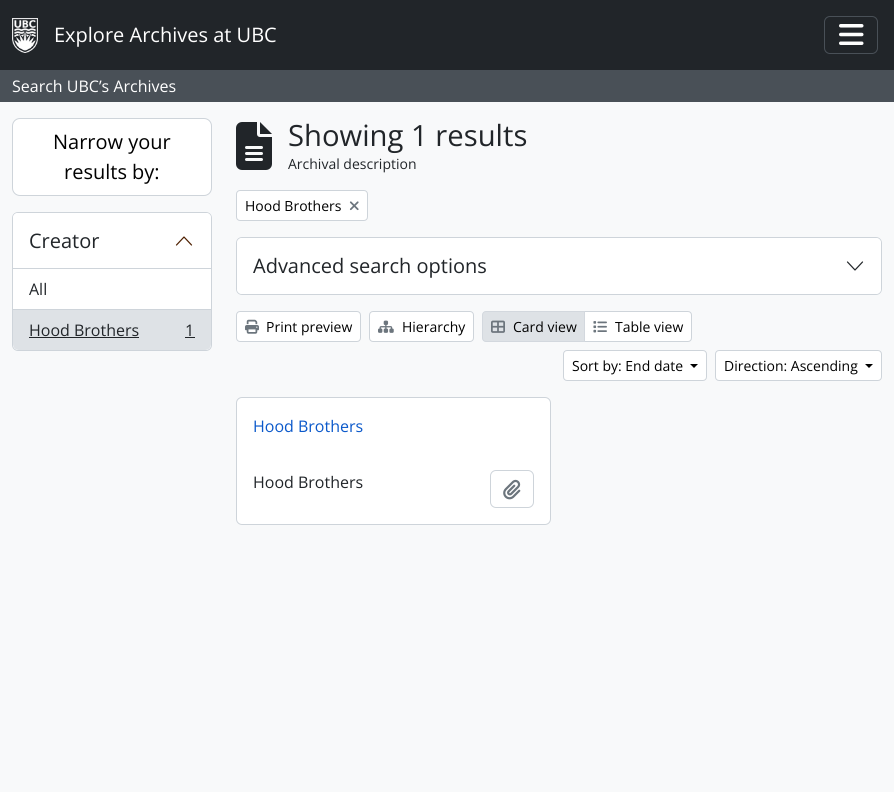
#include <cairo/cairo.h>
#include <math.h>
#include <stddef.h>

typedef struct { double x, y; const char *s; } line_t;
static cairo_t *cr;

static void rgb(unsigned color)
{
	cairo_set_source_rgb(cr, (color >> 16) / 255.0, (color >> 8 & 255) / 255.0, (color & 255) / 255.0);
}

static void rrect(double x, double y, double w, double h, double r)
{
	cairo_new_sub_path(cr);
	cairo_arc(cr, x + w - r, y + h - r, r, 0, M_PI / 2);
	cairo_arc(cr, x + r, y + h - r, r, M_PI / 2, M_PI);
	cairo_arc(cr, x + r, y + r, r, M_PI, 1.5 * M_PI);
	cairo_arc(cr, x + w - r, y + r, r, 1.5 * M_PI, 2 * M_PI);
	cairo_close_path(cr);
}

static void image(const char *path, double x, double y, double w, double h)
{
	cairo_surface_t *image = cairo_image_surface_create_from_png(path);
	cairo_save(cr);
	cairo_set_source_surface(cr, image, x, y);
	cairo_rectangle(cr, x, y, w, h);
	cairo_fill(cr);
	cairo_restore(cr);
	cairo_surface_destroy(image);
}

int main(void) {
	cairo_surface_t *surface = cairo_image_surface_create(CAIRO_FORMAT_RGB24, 894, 792);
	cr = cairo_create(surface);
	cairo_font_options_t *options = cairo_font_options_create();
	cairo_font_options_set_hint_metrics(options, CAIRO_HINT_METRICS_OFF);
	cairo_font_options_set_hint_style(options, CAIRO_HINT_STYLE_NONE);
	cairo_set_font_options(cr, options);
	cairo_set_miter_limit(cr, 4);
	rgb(0xf8f9fa);
	cairo_paint(cr);
	rgb(0x212529);
	cairo_rectangle(cr, 0, 0, 894, 70);
	cairo_fill(cr);
	image("img/1.png", 12, 18, 26, 35);
	rrect(824.5, 16.5, 53, 37, 5.5);
	rgb(0x495057);
	cairo_set_line_width(cr, 1);
	cairo_stroke(cr);
	image("img/2.png", 839, 24, 25, 21);
	cairo_rectangle(cr, 0, 70, 894, 32);
	cairo_fill(cr);
	rgb(0xffffff);
	rrect(12.5, 118.5, 199, 77, 7.5);
	cairo_fill_preserve(cr);
	rgb(0xced4da);
	cairo_stroke(cr);
	rgb(0xffffff);
	rrect(12.5, 212.5, 199, 138, 5.5);
	cairo_fill_preserve(cr);
	rgb(0xced4da);
	cairo_stroke(cr);
	rgb(0xffffff);
	cairo_new_path(cr);
	cairo_move_to(cr, 18, 213);
	cairo_line_to(cr, 206, 213);
	cairo_curve_to(cr, 209, 213, 211, 215, 211, 218);
	cairo_line_to(cr, 211, 269);
	cairo_line_to(cr, 13, 269);
	cairo_line_to(cr, 13, 218);
	cairo_curve_to(cr, 13, 215, 15, 213, 18, 213);
	cairo_close_path(cr);
	cairo_fill(cr);
	rgb(0xced4da);
	cairo_rectangle(cr, 13, 268, 198, 1);
	cairo_fill(cr);
	cairo_new_path(cr);
	cairo_move_to(cr, 191.5, 245);
	cairo_line_to(cr, 184, 237);
	cairo_line_to(cr, 176.5, 245);
	rgb(0x4e1f00);
	cairo_set_line_width(cr, 1.2);
	cairo_set_line_cap(cr, CAIRO_LINE_CAP_ROUND);
	cairo_set_line_join(cr, CAIRO_LINE_JOIN_ROUND);
	cairo_stroke(cr);
	rgb(0xced4da);
	cairo_rectangle(cr, 13, 309, 198, 1);
	cairo_fill(cr);
	rgb(0xdee2e6);
	cairo_new_path(cr);
	cairo_move_to(cr, 13, 310);
	cairo_line_to(cr, 211, 310);
	cairo_line_to(cr, 211, 344);
	cairo_curve_to(cr, 211, 347.5, 208.5, 350, 205, 350);
	cairo_line_to(cr, 19, 350);
	cairo_curve_to(cr, 15.5, 350, 13, 347.5, 13, 344);
	cairo_close_path(cr);
	cairo_fill(cr);
	rgb(0x212529);
	cairo_rectangle(cr, 29, 337, 110, 1);
	cairo_fill(cr);
	cairo_rectangle(cr, 185, 337, 10, 1);
	cairo_fill(cr);
	image("img/3.png", 236, 122, 36, 48);
	rgb(0xffffff);
	rrect(236.5, 190.5, 131, 30, 3.5);
	cairo_fill_preserve(cr);
	rgb(0xced4da);
	cairo_set_line_width(cr, 1);
	cairo_set_line_cap(cr, CAIRO_LINE_CAP_BUTT);
	cairo_set_line_join(cr, CAIRO_LINE_JOIN_MITER);
	cairo_stroke(cr);
	image("img/4.png", 349, 201, 10, 10);
	rrect(236.5, 237.5, 645, 57, 5.5);
	cairo_stroke(cr);
	rgb(0xffffff);
	rrect(237, 238, 644, 56, 5);
	cairo_fill(cr);
	cairo_new_path(cr);
	cairo_move_to(cr, 847.5, 262);
	cairo_line_to(cr, 855, 270);
	cairo_line_to(cr, 862.5, 262);
	rgb(0x212529);
	cairo_set_line_width(cr, 1.2);
	cairo_set_line_cap(cr, CAIRO_LINE_CAP_ROUND);
	cairo_set_line_join(cr, CAIRO_LINE_JOIN_ROUND);
	cairo_stroke(cr);
	rgb(0xffffff);
	rrect(236.5, 311.5, 124, 30, 3.5);
	cairo_fill_preserve(cr);
	rgb(0xced4da);
	cairo_set_line_width(cr, 1);
	cairo_set_line_cap(cr, CAIRO_LINE_CAP_BUTT);
	cairo_set_line_join(cr, CAIRO_LINE_JOIN_MITER);
	cairo_stroke(cr);
	image("img/5.png", 245, 319, 14, 15);
	rgb(0xffffff);
	rrect(369.5, 311.5, 104, 30, 3.5);
	cairo_fill_preserve(cr);
	rgb(0xced4da);
	cairo_stroke(cr);
	image("img/6.png", 378, 320, 16, 13);
	rgb(0xffffff);
	cairo_new_path(cr);
	cairo_move_to(cr, 584.5, 311.5);
	cairo_line_to(cr, 688, 311.5);
	cairo_curve_to(cr, 690, 311.5, 691.5, 313, 691.5, 315);
	cairo_line_to(cr, 691.5, 338);
	cairo_curve_to(cr, 691.5, 340, 690, 341.5, 688, 341.5);
	cairo_line_to(cr, 584.5, 341.5);
	cairo_close_path(cr);
	cairo_fill_preserve(cr);
	rgb(0xced4da);
	cairo_stroke(cr);
	rgb(0xdee2e6);
	cairo_new_path(cr);
	cairo_move_to(cr, 486, 311.5);
	cairo_line_to(cr, 584.5, 311.5);
	cairo_line_to(cr, 584.5, 341.5);
	cairo_line_to(cr, 486, 341.5);
	cairo_curve_to(cr, 484, 341.5, 482.5, 340, 482.5, 338);
	cairo_line_to(cr, 482.5, 315);
	cairo_curve_to(cr, 482.5, 313, 484, 311.5, 486, 311.5);
	cairo_close_path(cr);
	cairo_fill_preserve(cr);
	rgb(0xd3d8de);
	cairo_stroke(cr);
	image("img/7.png", 491, 320, 14, 13);
	image("img/8.png", 593, 321, 14, 12);
	rgb(0xffffff);
	rrect(563.5, 350.5, 143, 30, 3.5);
	cairo_fill_preserve(cr);
	rgb(0xced4da);
	cairo_stroke(cr);
	rgb(0x000000);
	cairo_new_path(cr);
	cairo_move_to(cr, 690, 364);
	cairo_line_to(cr, 698, 364);
	cairo_line_to(cr, 694, 368);
	cairo_close_path(cr);
	cairo_fill(cr);
	rgb(0xffffff);
	rrect(715.5, 350.5, 166, 30, 3.5);
	cairo_fill_preserve(cr);
	rgb(0xced4da);
	cairo_stroke(cr);
	rgb(0x000000);
	cairo_new_path(cr);
	cairo_move_to(cr, 865, 364);
	cairo_line_to(cr, 873, 364);
	cairo_line_to(cr, 869, 368);
	cairo_close_path(cr);
	cairo_fill(cr);
	rgb(0xffffff);
	rrect(236.5, 397.5, 314, 127, 5.5);
	cairo_fill_preserve(cr);
	rgb(0xced4da);
	cairo_stroke(cr);
	rrect(490.5, 470.5, 43, 37, 5.5);
	cairo_stroke(cr);
	image("img/9.png", 503, 479, 18, 21);
	cairo_select_font_face(cr, "Open Sans", CAIRO_FONT_SLANT_NORMAL, CAIRO_FONT_WEIGHT_NORMAL);
	cairo_set_font_size(cr, 20);
	rgb(0xffffff);
	cairo_move_to(cr, 54, 42);
	cairo_show_text(cr, "Explore Archives at UBC");
	cairo_set_font_size(cr, 16);
	cairo_move_to(cr, 12, 92);
	cairo_show_text(cr, "Search UBC’s Archives");
	cairo_set_font_size(cr, 20);
	rgb(0x000000);
	cairo_move_to(cr, 53, 149);
	cairo_show_text(cr, "Narrow your");
	cairo_move_to(cr, 64, 179);
	cairo_show_text(cr, "results by:");
	rgb(0x212529);
	cairo_move_to(cr, 29, 248);
	cairo_show_text(cr, "Creator");
	cairo_set_font_size(cr, 16);
	{
		static const line_t items[] = {
			{29, 295, "All"},
			{29, 336, "Hood Brothers"},
			{185, 336, "1"},
		};
		for (size_t i = 0; i < sizeof items / sizeof *items; i++) {
			cairo_move_to(cr, items[i].x, items[i].y);
			cairo_show_text(cr, items[i].s);
		}
	}
	cairo_set_font_size(cr, 29.25);
	cairo_move_to(cr, 288, 146);
	cairo_show_text(cr, "Showing 1 results");
	cairo_set_font_size(cr, 14);
	cairo_move_to(cr, 288, 169);
	cairo_show_text(cr, "Archival description");
	rgb(0x000000);
	cairo_move_to(cr, 245, 211);
	cairo_show_text(cr, "Hood Brothers");
	cairo_set_font_size(cr, 20);
	rgb(0x212529);
	cairo_move_to(cr, 253, 273);
	cairo_show_text(cr, "Advanced search options");
	cairo_set_font_size(cr, 14);
	rgb(0x000000);
	{
		static const line_t items[] = {
			{266, 332, "Print preview"},
			{402, 332, "Hierarchy"},
			{513, 332, "Card view"},
			{615, 332, "Table view"},
			{572, 371, "Sort by: End date"},
			{724, 371, "Direction: Ascending"},
		};
		for (size_t i = 0; i < sizeof items / sizeof *items; i++) {
			cairo_move_to(cr, items[i].x, items[i].y);
			cairo_show_text(cr, items[i].s);
		}
	}
	cairo_set_font_size(cr, 16);
	rgb(0x0a58ca);
	cairo_move_to(cr, 253, 432);
	cairo_show_text(cr, "Hood Brothers");
	rgb(0x212529);
	cairo_move_to(cr, 253, 488);
	cairo_show_text(cr, "Hood Brothers");
	cairo_surface_write_to_png(surface, "page.png");
	cairo_font_options_destroy(options);
	cairo_destroy(cr);
	cairo_surface_destroy(surface);
	return 0;
}
